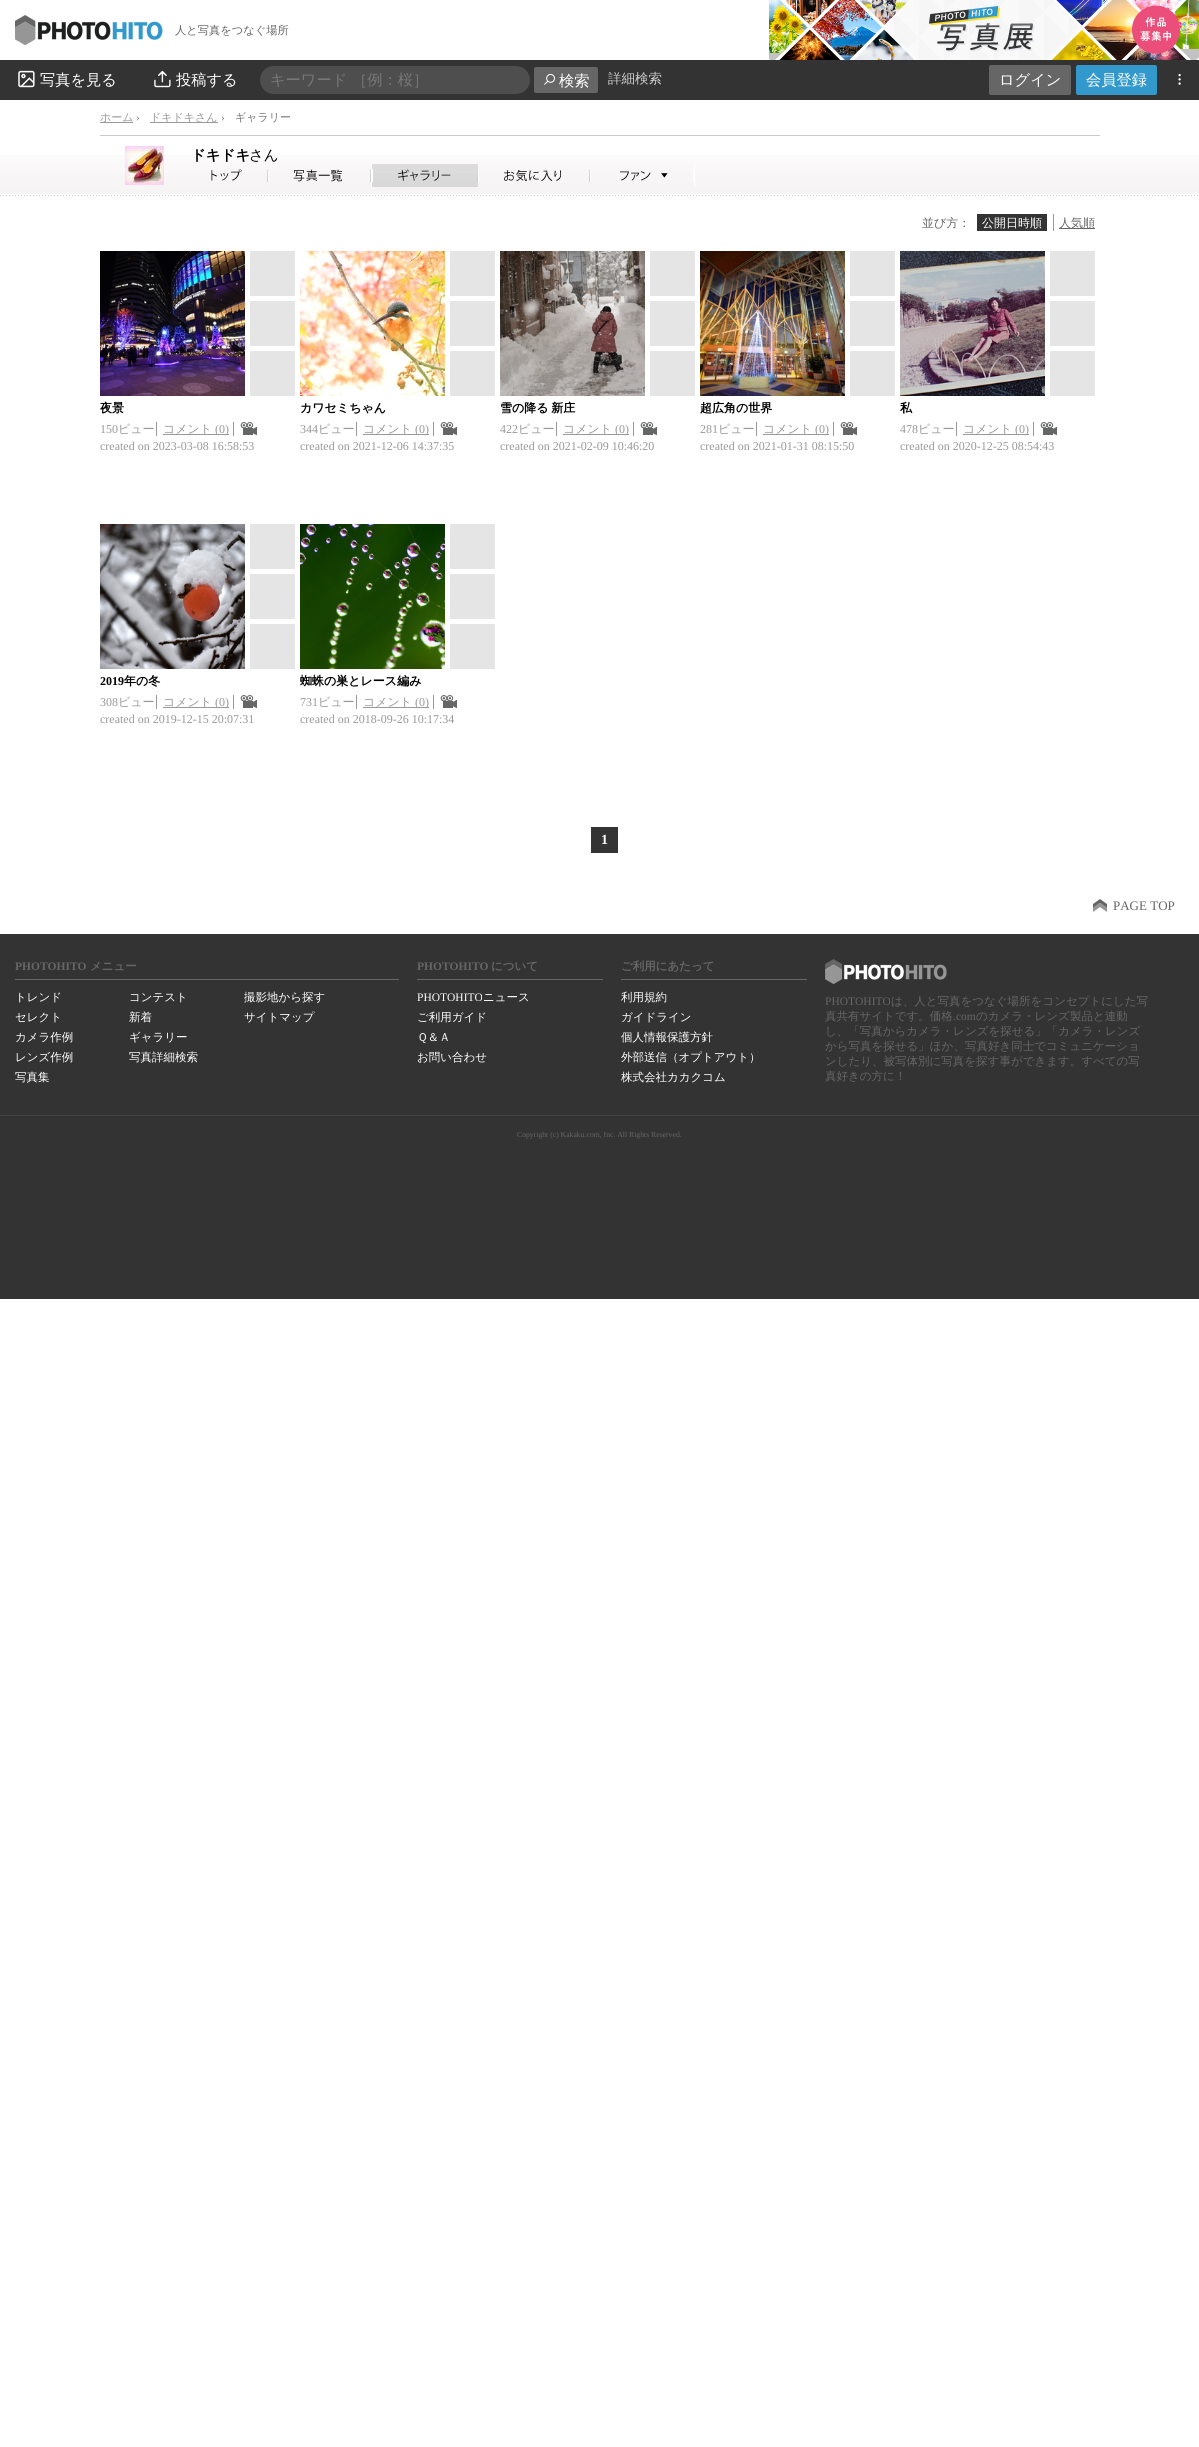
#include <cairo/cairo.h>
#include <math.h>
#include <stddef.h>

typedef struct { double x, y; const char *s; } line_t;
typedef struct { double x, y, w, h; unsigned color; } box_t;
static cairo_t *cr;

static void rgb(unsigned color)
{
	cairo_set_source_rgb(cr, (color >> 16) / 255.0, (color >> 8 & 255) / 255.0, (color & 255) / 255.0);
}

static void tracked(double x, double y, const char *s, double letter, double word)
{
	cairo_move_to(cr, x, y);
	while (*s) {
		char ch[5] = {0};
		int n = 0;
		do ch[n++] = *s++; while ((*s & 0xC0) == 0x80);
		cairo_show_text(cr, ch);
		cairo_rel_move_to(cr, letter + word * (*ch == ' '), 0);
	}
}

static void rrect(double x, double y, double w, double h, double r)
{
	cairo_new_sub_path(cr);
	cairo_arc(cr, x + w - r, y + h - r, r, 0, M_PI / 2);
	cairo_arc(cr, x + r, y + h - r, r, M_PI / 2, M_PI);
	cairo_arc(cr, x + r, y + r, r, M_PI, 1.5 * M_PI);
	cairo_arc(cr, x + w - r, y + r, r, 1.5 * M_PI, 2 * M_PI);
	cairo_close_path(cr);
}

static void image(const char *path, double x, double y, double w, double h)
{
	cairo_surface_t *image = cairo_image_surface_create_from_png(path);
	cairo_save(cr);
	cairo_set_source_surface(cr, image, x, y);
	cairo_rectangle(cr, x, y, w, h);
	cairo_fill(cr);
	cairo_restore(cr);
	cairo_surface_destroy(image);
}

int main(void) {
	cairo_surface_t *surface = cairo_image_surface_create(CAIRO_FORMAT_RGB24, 1199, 2447);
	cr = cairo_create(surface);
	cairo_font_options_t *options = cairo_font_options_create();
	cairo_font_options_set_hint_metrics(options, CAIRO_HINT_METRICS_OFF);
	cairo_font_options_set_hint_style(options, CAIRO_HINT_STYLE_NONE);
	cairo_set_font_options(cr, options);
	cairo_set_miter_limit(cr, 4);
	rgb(0xffffff);
	cairo_paint(cr);
	image("img/1.png", 15, 15, 148, 30);
	image("img/2.png", 769, 0, 430, 60);
	rgb(0x333333);
	cairo_rectangle(cr, 0, 60, 1199, 40);
	cairo_fill(cr);
	image("img/3.png", 18, 70, 17, 18);
	image("img/4.png", 154, 70, 17, 18);
	rgb(0x4e4e4e);
	rrect(260, 66, 270, 28, 14);
	cairo_fill(cr);
	rgb(0x666666);
	rrect(534, 67, 64, 26, 2);
	cairo_fill(cr);
	image("img/5.png", 544, 73, 11, 12);
	rrect(989, 65, 82, 30, 2);
	cairo_fill(cr);
	rgb(0x3399cc);
	rrect(1076, 65, 81, 30, 2);
	cairo_fill(cr);
	image("img/6.png", 1178, 73, 3, 12);
	{
		static const box_t items[] = {
			{100, 135, 1000, 1, 0xcccccc},
			{100, 122, 33, 1, 0x999999},
			{150, 122, 68, 1, 0x999999},
		};
		for (size_t i = 0; i < sizeof items / sizeof *items; i++) {
			rgb(items[i].color);
			cairo_rectangle(cr, items[i].x, items[i].y, items[i].w, items[i].h);
			cairo_fill(cr);
		}
	}
	image("img/7.png", 0, 155, 1199, 41);
	image("img/8.png", 125, 146, 39, 39);
	image("img/9.png", 211, 169, 57, 13);
	image("img/10.png", 268, 164, 103, 23);
	rgb(0xffffff);
	cairo_rectangle(cr, 371, 164, 1, 23);
	cairo_fill(cr);
	image("img/11.png", 372, 164, 106, 23);
	image("img/12.png", 478, 164, 112, 23);
	image("img/13.png", 590, 164, 104, 23);
	{
		static const box_t items[] = {
			{694, 164, 1, 23, 0xffffff},
			{977, 214, 70, 17, 0x333333},
			{1053, 214, 1, 17, 0x999999},
			{1059, 228, 36, 1, 0x666666},
		};
		for (size_t i = 0; i < sizeof items / sizeof *items; i++) {
			rgb(items[i].color);
			cairo_rectangle(cr, items[i].x, items[i].y, items[i].w, items[i].h);
			cairo_fill(cr);
		}
	}
	image("img/14.png", 250, 251, 45, 145);
	image("img/15.png", 100, 251, 145, 145);
	{
		static const box_t items[] = {
			{156, 422, 1, 14, 0x999999},
			{233, 422, 1, 14, 0x999999},
			{163, 434, 66, 1, 0x999999},
		};
		for (size_t i = 0; i < sizeof items / sizeof *items; i++) {
			rgb(items[i].color);
			cairo_rectangle(cr, items[i].x, items[i].y, items[i].w, items[i].h);
			cairo_fill(cr);
		}
	}
	image("img/16.png", 240, 422, 17, 13);
	image("img/14.png", 450, 251, 45, 145);
	image("img/17.png", 300, 251, 145, 145);
	{
		static const box_t items[] = {
			{356, 422, 1, 14, 0x999999},
			{433, 422, 1, 14, 0x999999},
			{363, 434, 66, 1, 0x999999},
		};
		for (size_t i = 0; i < sizeof items / sizeof *items; i++) {
			rgb(items[i].color);
			cairo_rectangle(cr, items[i].x, items[i].y, items[i].w, items[i].h);
			cairo_fill(cr);
		}
	}
	image("img/16.png", 440, 422, 17, 13);
	image("img/14.png", 650, 251, 45, 145);
	image("img/18.png", 500, 251, 145, 145);
	{
		static const box_t items[] = {
			{556, 422, 1, 14, 0x999999},
			{633, 422, 1, 14, 0x999999},
			{563, 434, 66, 1, 0x999999},
		};
		for (size_t i = 0; i < sizeof items / sizeof *items; i++) {
			rgb(items[i].color);
			cairo_rectangle(cr, items[i].x, items[i].y, items[i].w, items[i].h);
			cairo_fill(cr);
		}
	}
	image("img/16.png", 640, 422, 17, 13);
	image("img/14.png", 850, 251, 45, 145);
	image("img/19.png", 700, 251, 145, 145);
	{
		static const box_t items[] = {
			{756, 422, 1, 14, 0x999999},
			{833, 422, 1, 14, 0x999999},
			{763, 434, 66, 1, 0x999999},
		};
		for (size_t i = 0; i < sizeof items / sizeof *items; i++) {
			rgb(items[i].color);
			cairo_rectangle(cr, items[i].x, items[i].y, items[i].w, items[i].h);
			cairo_fill(cr);
		}
	}
	image("img/16.png", 840, 422, 17, 13);
	image("img/14.png", 1050, 251, 45, 145);
	image("img/20.png", 900, 251, 145, 145);
	{
		static const box_t items[] = {
			{956, 422, 1, 14, 0x999999},
			{1033, 422, 1, 14, 0x999999},
			{963, 434, 66, 1, 0x999999},
		};
		for (size_t i = 0; i < sizeof items / sizeof *items; i++) {
			rgb(items[i].color);
			cairo_rectangle(cr, items[i].x, items[i].y, items[i].w, items[i].h);
			cairo_fill(cr);
		}
	}
	image("img/16.png", 1040, 422, 17, 13);
	image("img/14.png", 250, 524, 45, 145);
	image("img/21.png", 100, 524, 145, 145);
	{
		static const box_t items[] = {
			{156, 695, 1, 14, 0x999999},
			{233, 695, 1, 14, 0x999999},
			{163, 707, 66, 1, 0x999999},
		};
		for (size_t i = 0; i < sizeof items / sizeof *items; i++) {
			rgb(items[i].color);
			cairo_rectangle(cr, items[i].x, items[i].y, items[i].w, items[i].h);
			cairo_fill(cr);
		}
	}
	image("img/16.png", 240, 695, 17, 13);
	image("img/14.png", 450, 524, 45, 145);
	image("img/22.png", 300, 524, 145, 145);
	{
		static const box_t items[] = {
			{356, 695, 1, 14, 0x999999},
			{433, 695, 1, 14, 0x999999},
			{363, 707, 66, 1, 0x999999},
		};
		for (size_t i = 0; i < sizeof items / sizeof *items; i++) {
			rgb(items[i].color);
			cairo_rectangle(cr, items[i].x, items[i].y, items[i].w, items[i].h);
			cairo_fill(cr);
		}
	}
	image("img/16.png", 440, 695, 17, 13);
	rgb(0x343434);
	cairo_rectangle(cr, 591, 827, 27, 26);
	cairo_fill(cr);
	image("img/23.png", 1093, 899, 14, 13);
	{
		static const box_t items[] = {
			{0, 934, 1199, 365, 0x333333},
			{15, 979, 384, 1, 0x666666},
			{417, 979, 186, 1, 0x666666},
			{621, 979, 186, 1, 0x666666},
		};
		for (size_t i = 0; i < sizeof items / sizeof *items; i++) {
			rgb(items[i].color);
			cairo_rectangle(cr, items[i].x, items[i].y, items[i].w, items[i].h);
			cairo_fill(cr);
		}
	}
	image("img/24.png", 825, 959, 122, 25);
	rgb(0x444444);
	cairo_rectangle(cr, 0, 1115, 1199, 1);
	cairo_fill(cr);
	cairo_select_font_face(cr, "WenQuanYi Zen Hei Medium", CAIRO_FONT_SLANT_NORMAL, CAIRO_FONT_WEIGHT_NORMAL);
	cairo_set_font_size(cr, 11.25);
	rgb(0x666666);
	cairo_move_to(cr, 175, 34);
	cairo_show_text(cr, "人と写真をつなぐ場所");
	cairo_set_font_size(cr, 15.25);
	rgb(0xffffff);
	cairo_move_to(cr, 40, 85);
	cairo_show_text(cr, "写真を見る");
	cairo_move_to(cr, 176, 85);
	cairo_show_text(cr, "投稿する");
	rgb(0x777777);
	cairo_move_to(cr, 270, 85);
	cairo_show_text(cr, "キーワード ［例：桜］");
	rgb(0xffffff);
	cairo_move_to(cr, 559, 86);
	cairo_show_text(cr, "検索");
	cairo_set_font_size(cr, 13.5);
	rgb(0xcccccc);
	cairo_move_to(cr, 608, 83);
	cairo_show_text(cr, "詳細検索");
	cairo_set_font_size(cr, 15.25);
	rgb(0xffffff);
	cairo_move_to(cr, 999, 85);
	cairo_show_text(cr, "ログイン");
	cairo_move_to(cr, 1086, 85);
	cairo_show_text(cr, "会員登録");
	cairo_set_font_size(cr, 11);
	rgb(0x999999);
	cairo_move_to(cr, 100, 121);
	cairo_show_text(cr, "ホーム");
	cairo_select_font_face(cr, "Liberation Serif", CAIRO_FONT_SLANT_NORMAL, CAIRO_FONT_WEIGHT_NORMAL);
	rgb(0x777777);
	cairo_move_to(cr, 136, 121);
	cairo_show_text(cr, "›");
	cairo_select_font_face(cr, "WenQuanYi Zen Hei Medium", CAIRO_FONT_SLANT_NORMAL, CAIRO_FONT_WEIGHT_NORMAL);
	rgb(0x999999);
	cairo_move_to(cr, 150, 121);
	cairo_show_text(cr, "ドキドキさん");
	cairo_select_font_face(cr, "Liberation Serif", CAIRO_FONT_SLANT_NORMAL, CAIRO_FONT_WEIGHT_NORMAL);
	rgb(0x777777);
	cairo_move_to(cr, 221, 121);
	cairo_show_text(cr, "›");
	cairo_select_font_face(cr, "WenQuanYi Zen Hei Medium", CAIRO_FONT_SLANT_NORMAL, CAIRO_FONT_WEIGHT_NORMAL);
	cairo_move_to(cr, 235, 121);
	cairo_show_text(cr, "ギャラリー");
	cairo_select_font_face(cr, "WenQuanYi Zen Hei", CAIRO_FONT_SLANT_NORMAL, CAIRO_FONT_WEIGHT_BOLD);
	cairo_set_font_size(cr, 14.5);
	rgb(0x000000);
	cairo_move_to(cr, 191, 160);
	cairo_show_text(cr, "ドキドキ");
	cairo_select_font_face(cr, "WenQuanYi Zen Hei Medium", CAIRO_FONT_SLANT_NORMAL, CAIRO_FONT_WEIGHT_NORMAL);
	cairo_move_to(cr, 249, 160);
	cairo_show_text(cr, "さん");
	cairo_set_font_size(cr, 12);
	rgb(0x666666);
	cairo_move_to(cr, 922, 227);
	cairo_show_text(cr, "並び方：");
	rgb(0xffffff);
	cairo_move_to(cr, 982, 227);
	cairo_show_text(cr, "公開日時順");
	rgb(0x666666);
	cairo_move_to(cr, 1059, 227);
	cairo_show_text(cr, "人気順");
	cairo_select_font_face(cr, "WenQuanYi Zen Hei", CAIRO_FONT_SLANT_NORMAL, CAIRO_FONT_WEIGHT_BOLD);
	rgb(0x000000);
	cairo_move_to(cr, 100, 412);
	cairo_show_text(cr, "夜景");
	cairo_select_font_face(cr, "Liberation Serif", CAIRO_FONT_SLANT_NORMAL, CAIRO_FONT_WEIGHT_NORMAL);
	rgb(0x999999);
	cairo_move_to(cr, 100, 433);
	cairo_show_text(cr, "150");
	cairo_select_font_face(cr, "WenQuanYi Zen Hei Medium", CAIRO_FONT_SLANT_NORMAL, CAIRO_FONT_WEIGHT_NORMAL);
	cairo_move_to(cr, 118, 433);
	cairo_show_text(cr, "ビュー");
	cairo_move_to(cr, 163, 433);
	cairo_show_text(cr, "コメント");
	cairo_select_font_face(cr, "Liberation Serif", CAIRO_FONT_SLANT_NORMAL, CAIRO_FONT_WEIGHT_NORMAL);
	cairo_move_to(cr, 215, 433);
	cairo_show_text(cr, "(0)");
	cairo_move_to(cr, 100, 450);
	cairo_show_text(cr, "created on 2023-03-08 16:58:53");
	cairo_select_font_face(cr, "WenQuanYi Zen Hei", CAIRO_FONT_SLANT_NORMAL, CAIRO_FONT_WEIGHT_BOLD);
	rgb(0x000000);
	cairo_move_to(cr, 300, 412);
	cairo_show_text(cr, "カワセミちゃん");
	cairo_select_font_face(cr, "Liberation Serif", CAIRO_FONT_SLANT_NORMAL, CAIRO_FONT_WEIGHT_NORMAL);
	rgb(0x999999);
	cairo_move_to(cr, 300, 433);
	cairo_show_text(cr, "344");
	cairo_select_font_face(cr, "WenQuanYi Zen Hei Medium", CAIRO_FONT_SLANT_NORMAL, CAIRO_FONT_WEIGHT_NORMAL);
	cairo_move_to(cr, 318, 433);
	cairo_show_text(cr, "ビュー");
	cairo_move_to(cr, 363, 433);
	cairo_show_text(cr, "コメント");
	cairo_select_font_face(cr, "Liberation Serif", CAIRO_FONT_SLANT_NORMAL, CAIRO_FONT_WEIGHT_NORMAL);
	cairo_move_to(cr, 415, 433);
	cairo_show_text(cr, "(0)");
	cairo_move_to(cr, 300, 450);
	cairo_show_text(cr, "created on 2021-12-06 14:37:35");
	cairo_select_font_face(cr, "WenQuanYi Zen Hei", CAIRO_FONT_SLANT_NORMAL, CAIRO_FONT_WEIGHT_BOLD);
	rgb(0x000000);
	tracked(500, 412, "雪の降る 新庄", 0, -1);
	cairo_select_font_face(cr, "Liberation Serif", CAIRO_FONT_SLANT_NORMAL, CAIRO_FONT_WEIGHT_NORMAL);
	rgb(0x999999);
	cairo_move_to(cr, 500, 433);
	cairo_show_text(cr, "422");
	cairo_select_font_face(cr, "WenQuanYi Zen Hei Medium", CAIRO_FONT_SLANT_NORMAL, CAIRO_FONT_WEIGHT_NORMAL);
	cairo_move_to(cr, 518, 433);
	cairo_show_text(cr, "ビュー");
	cairo_move_to(cr, 563, 433);
	cairo_show_text(cr, "コメント");
	cairo_select_font_face(cr, "Liberation Serif", CAIRO_FONT_SLANT_NORMAL, CAIRO_FONT_WEIGHT_NORMAL);
	cairo_move_to(cr, 615, 433);
	cairo_show_text(cr, "(0)");
	cairo_move_to(cr, 500, 450);
	cairo_show_text(cr, "created on 2021-02-09 10:46:20");
	cairo_select_font_face(cr, "WenQuanYi Zen Hei", CAIRO_FONT_SLANT_NORMAL, CAIRO_FONT_WEIGHT_BOLD);
	rgb(0x000000);
	cairo_move_to(cr, 700, 412);
	cairo_show_text(cr, "超広角の世界");
	cairo_select_font_face(cr, "Liberation Serif", CAIRO_FONT_SLANT_NORMAL, CAIRO_FONT_WEIGHT_NORMAL);
	rgb(0x999999);
	cairo_move_to(cr, 700, 433);
	cairo_show_text(cr, "281");
	cairo_select_font_face(cr, "WenQuanYi Zen Hei Medium", CAIRO_FONT_SLANT_NORMAL, CAIRO_FONT_WEIGHT_NORMAL);
	cairo_move_to(cr, 718, 433);
	cairo_show_text(cr, "ビュー");
	cairo_move_to(cr, 763, 433);
	cairo_show_text(cr, "コメント");
	cairo_select_font_face(cr, "Liberation Serif", CAIRO_FONT_SLANT_NORMAL, CAIRO_FONT_WEIGHT_NORMAL);
	cairo_move_to(cr, 815, 433);
	cairo_show_text(cr, "(0)");
	cairo_move_to(cr, 700, 450);
	cairo_show_text(cr, "created on 2021-01-31 08:15:50");
	cairo_select_font_face(cr, "WenQuanYi Zen Hei", CAIRO_FONT_SLANT_NORMAL, CAIRO_FONT_WEIGHT_BOLD);
	rgb(0x000000);
	cairo_move_to(cr, 900, 412);
	cairo_show_text(cr, "私");
	cairo_select_font_face(cr, "Liberation Serif", CAIRO_FONT_SLANT_NORMAL, CAIRO_FONT_WEIGHT_NORMAL);
	rgb(0x999999);
	cairo_move_to(cr, 900, 433);
	cairo_show_text(cr, "478");
	cairo_select_font_face(cr, "WenQuanYi Zen Hei Medium", CAIRO_FONT_SLANT_NORMAL, CAIRO_FONT_WEIGHT_NORMAL);
	cairo_move_to(cr, 918, 433);
	cairo_show_text(cr, "ビュー");
	cairo_move_to(cr, 963, 433);
	cairo_show_text(cr, "コメント");
	cairo_select_font_face(cr, "Liberation Serif", CAIRO_FONT_SLANT_NORMAL, CAIRO_FONT_WEIGHT_NORMAL);
	cairo_move_to(cr, 1015, 433);
	cairo_show_text(cr, "(0)");
	cairo_move_to(cr, 900, 450);
	cairo_show_text(cr, "created on 2020-12-25 08:54:43");
	cairo_select_font_face(cr, "Liberation Serif", CAIRO_FONT_SLANT_NORMAL, CAIRO_FONT_WEIGHT_BOLD);
	rgb(0x000000);
	cairo_move_to(cr, 100, 685);
	cairo_show_text(cr, "2019");
	cairo_select_font_face(cr, "WenQuanYi Zen Hei", CAIRO_FONT_SLANT_NORMAL, CAIRO_FONT_WEIGHT_BOLD);
	cairo_move_to(cr, 124, 685);
	cairo_show_text(cr, "年の冬");
	cairo_select_font_face(cr, "Liberation Serif", CAIRO_FONT_SLANT_NORMAL, CAIRO_FONT_WEIGHT_NORMAL);
	rgb(0x999999);
	cairo_move_to(cr, 100, 706);
	cairo_show_text(cr, "308");
	cairo_select_font_face(cr, "WenQuanYi Zen Hei Medium", CAIRO_FONT_SLANT_NORMAL, CAIRO_FONT_WEIGHT_NORMAL);
	cairo_move_to(cr, 118, 706);
	cairo_show_text(cr, "ビュー");
	cairo_move_to(cr, 163, 706);
	cairo_show_text(cr, "コメント");
	cairo_select_font_face(cr, "Liberation Serif", CAIRO_FONT_SLANT_NORMAL, CAIRO_FONT_WEIGHT_NORMAL);
	cairo_move_to(cr, 215, 706);
	cairo_show_text(cr, "(0)");
	cairo_move_to(cr, 100, 723);
	cairo_show_text(cr, "created on 2019-12-15 20:07:31");
	cairo_select_font_face(cr, "WenQuanYi Zen Hei", CAIRO_FONT_SLANT_NORMAL, CAIRO_FONT_WEIGHT_BOLD);
	rgb(0x000000);
	cairo_move_to(cr, 300, 685);
	cairo_show_text(cr, "蜘蛛の巣とレース編み");
	cairo_select_font_face(cr, "Liberation Serif", CAIRO_FONT_SLANT_NORMAL, CAIRO_FONT_WEIGHT_NORMAL);
	rgb(0x999999);
	cairo_move_to(cr, 300, 706);
	cairo_show_text(cr, "731");
	cairo_select_font_face(cr, "WenQuanYi Zen Hei Medium", CAIRO_FONT_SLANT_NORMAL, CAIRO_FONT_WEIGHT_NORMAL);
	cairo_move_to(cr, 318, 706);
	cairo_show_text(cr, "ビュー");
	cairo_move_to(cr, 363, 706);
	cairo_show_text(cr, "コメント");
	cairo_select_font_face(cr, "Liberation Serif", CAIRO_FONT_SLANT_NORMAL, CAIRO_FONT_WEIGHT_NORMAL);
	cairo_move_to(cr, 415, 706);
	cairo_show_text(cr, "(0)");
	cairo_move_to(cr, 300, 723);
	cairo_show_text(cr, "created on 2018-09-26 10:17:34");
	cairo_select_font_face(cr, "Liberation Serif", CAIRO_FONT_SLANT_NORMAL, CAIRO_FONT_WEIGHT_BOLD);
	cairo_set_font_size(cr, 14);
	rgb(0xffffff);
	cairo_move_to(cr, 601, 844);
	cairo_show_text(cr, "1");
	cairo_select_font_face(cr, "Liberation Serif", CAIRO_FONT_SLANT_NORMAL, CAIRO_FONT_WEIGHT_NORMAL);
	cairo_set_font_size(cr, 13);
	rgb(0x666666);
	cairo_move_to(cr, 1113, 910);
	cairo_show_text(cr, "PAGE TOP");
	cairo_select_font_face(cr, "Liberation Serif", CAIRO_FONT_SLANT_NORMAL, CAIRO_FONT_WEIGHT_BOLD);
	cairo_set_font_size(cr, 11.5);
	cairo_move_to(cr, 15, 970);
	cairo_show_text(cr, "PHOTOHITO");
	cairo_select_font_face(cr, "WenQuanYi Zen Hei", CAIRO_FONT_SLANT_NORMAL, CAIRO_FONT_WEIGHT_BOLD);
	cairo_move_to(cr, 90, 970);
	cairo_show_text(cr, "メニュー");
	cairo_select_font_face(cr, "WenQuanYi Zen Hei Medium", CAIRO_FONT_SLANT_NORMAL, CAIRO_FONT_WEIGHT_NORMAL);
	rgb(0xffffff);
	{
		static const line_t items[] = {
			{15, 1001, "トレンド"},
			{15, 1021, "セレクト"},
			{15, 1041, "カメラ作例"},
			{15, 1061, "レンズ作例"},
			{15, 1081, "写真集"},
			{129, 1001, "コンテスト"},
			{129, 1021, "新着"},
			{129, 1041, "ギャラリー"},
			{129, 1061, "写真詳細検索"},
			{244, 1001, "撮影地から探す"},
			{244, 1021, "サイトマップ"},
		};
		for (size_t i = 0; i < sizeof items / sizeof *items; i++) {
			cairo_move_to(cr, items[i].x, items[i].y);
			cairo_show_text(cr, items[i].s);
		}
	}
	cairo_select_font_face(cr, "Liberation Serif", CAIRO_FONT_SLANT_NORMAL, CAIRO_FONT_WEIGHT_BOLD);
	rgb(0x666666);
	cairo_move_to(cr, 417, 970);
	cairo_show_text(cr, "PHOTOHITO");
	cairo_select_font_face(cr, "WenQuanYi Zen Hei", CAIRO_FONT_SLANT_NORMAL, CAIRO_FONT_WEIGHT_BOLD);
	cairo_move_to(cr, 491, 970);
	cairo_show_text(cr, "について");
	cairo_select_font_face(cr, "Liberation Serif", CAIRO_FONT_SLANT_NORMAL, CAIRO_FONT_WEIGHT_NORMAL);
	rgb(0xffffff);
	cairo_move_to(cr, 417, 1001);
	cairo_show_text(cr, "PHOTOHITO");
	cairo_select_font_face(cr, "WenQuanYi Zen Hei Medium", CAIRO_FONT_SLANT_NORMAL, CAIRO_FONT_WEIGHT_NORMAL);
	{
		static const line_t items[] = {
			{483, 1001, "ニュース"},
			{417, 1021, "ご利用ガイド"},
			{417, 1041, "Ｑ＆Ａ"},
			{417, 1061, "お問い合わせ"},
		};
		for (size_t i = 0; i < sizeof items / sizeof *items; i++) {
			cairo_move_to(cr, items[i].x, items[i].y);
			cairo_show_text(cr, items[i].s);
		}
	}
	cairo_select_font_face(cr, "WenQuanYi Zen Hei", CAIRO_FONT_SLANT_NORMAL, CAIRO_FONT_WEIGHT_BOLD);
	rgb(0x666666);
	cairo_move_to(cr, 621, 970);
	cairo_show_text(cr, "ご利用にあたって");
	cairo_select_font_face(cr, "WenQuanYi Zen Hei Medium", CAIRO_FONT_SLANT_NORMAL, CAIRO_FONT_WEIGHT_NORMAL);
	rgb(0xffffff);
	{
		static const line_t items[] = {
			{621, 1001, "利用規約"},
			{621, 1021, "ガイドライン"},
			{621, 1041, "個人情報保護方針"},
			{621, 1061, "外部送信（オプトアウト）"},
			{621, 1081, "株式会社カカクコム"},
		};
		for (size_t i = 0; i < sizeof items / sizeof *items; i++) {
			cairo_move_to(cr, items[i].x, items[i].y);
			cairo_show_text(cr, items[i].s);
		}
	}
	cairo_select_font_face(cr, "Liberation Serif", CAIRO_FONT_SLANT_NORMAL, CAIRO_FONT_WEIGHT_NORMAL);
	rgb(0x666666);
	cairo_move_to(cr, 825, 1005);
	cairo_show_text(cr, "PHOTOHITO");
	cairo_select_font_face(cr, "WenQuanYi Zen Hei Medium", CAIRO_FONT_SLANT_NORMAL, CAIRO_FONT_WEIGHT_NORMAL);
	cairo_move_to(cr, 891, 1005);
	cairo_show_text(cr, "は、人と写真をつなぐ場所をコンセプトにした写");
	cairo_move_to(cr, 825, 1020);
	cairo_show_text(cr, "真共有サイトです。価格");
	cairo_select_font_face(cr, "Liberation Serif", CAIRO_FONT_SLANT_NORMAL, CAIRO_FONT_WEIGHT_NORMAL);
	cairo_move_to(cr, 953, 1020);
	cairo_show_text(cr, ".com");
	cairo_select_font_face(cr, "WenQuanYi Zen Hei Medium", CAIRO_FONT_SLANT_NORMAL, CAIRO_FONT_WEIGHT_NORMAL);
	{
		static const line_t items[] = {
			{976, 1020, "のカメラ・レンズ製品と連動"},
			{825, 1035, "し、「写真からカメラ・レンズを探せる」「カメラ・レンズ"},
			{825, 1050, "から写真を探せる」ほか、写真好き同士でコミュニケーショ"},
			{825, 1065, "ンしたり、被写体別に写真を探す事ができます。すべての写"},
			{825, 1080, "真好きの方に！"},
		};
		for (size_t i = 0; i < sizeof items / sizeof *items; i++) {
			cairo_move_to(cr, items[i].x, items[i].y);
			cairo_show_text(cr, items[i].s);
		}
	}
	cairo_select_font_face(cr, "Liberation Serif", CAIRO_FONT_SLANT_NORMAL, CAIRO_FONT_WEIGHT_NORMAL);
	cairo_set_font_size(cr, 7.7);
	cairo_move_to(cr, 517, 1137);
	cairo_show_text(cr, "Copyright (c) Kakaku.com, Inc. All Rights Reserved.");
	cairo_surface_write_to_png(surface, "page.png");
	cairo_font_options_destroy(options);
	cairo_destroy(cr);
	cairo_surface_destroy(surface);
	return 0;
}
